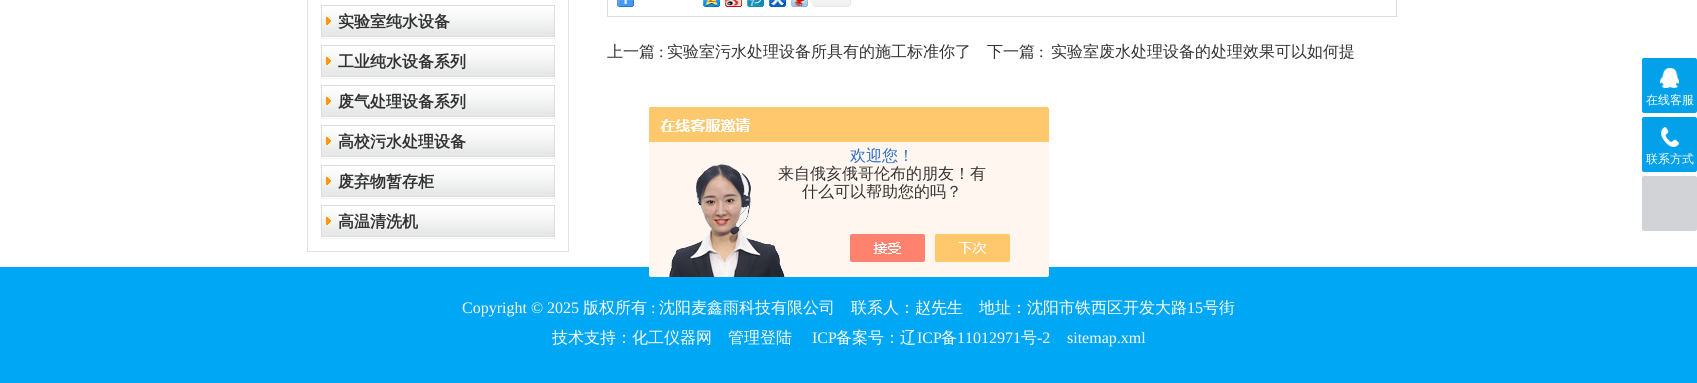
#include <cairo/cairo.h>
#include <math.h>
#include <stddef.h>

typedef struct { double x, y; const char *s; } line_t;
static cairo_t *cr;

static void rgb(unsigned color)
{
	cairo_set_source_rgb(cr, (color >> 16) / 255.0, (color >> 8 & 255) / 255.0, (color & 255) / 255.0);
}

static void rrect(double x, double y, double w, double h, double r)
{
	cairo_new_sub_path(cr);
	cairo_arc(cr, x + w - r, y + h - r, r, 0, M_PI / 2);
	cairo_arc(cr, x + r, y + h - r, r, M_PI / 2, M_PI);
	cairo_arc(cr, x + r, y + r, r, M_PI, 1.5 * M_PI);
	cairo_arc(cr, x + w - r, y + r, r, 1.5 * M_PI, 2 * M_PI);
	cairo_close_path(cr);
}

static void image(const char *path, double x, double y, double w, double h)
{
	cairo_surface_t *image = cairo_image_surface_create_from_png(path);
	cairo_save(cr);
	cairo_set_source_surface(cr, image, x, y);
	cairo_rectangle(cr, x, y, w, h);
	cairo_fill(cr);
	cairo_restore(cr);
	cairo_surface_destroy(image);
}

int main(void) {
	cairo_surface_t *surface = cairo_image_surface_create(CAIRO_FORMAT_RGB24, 1697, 383);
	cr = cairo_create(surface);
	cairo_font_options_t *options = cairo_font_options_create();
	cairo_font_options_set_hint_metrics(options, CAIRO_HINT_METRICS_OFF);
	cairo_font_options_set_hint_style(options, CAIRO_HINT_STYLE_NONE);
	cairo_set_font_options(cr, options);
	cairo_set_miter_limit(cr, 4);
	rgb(0xffffff);
	cairo_paint(cr);
	cairo_rectangle(cr, 307.5, -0.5, 261, 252);
	rgb(0xe0e1e3);
	cairo_set_line_width(cr, 1);
	cairo_stroke(cr);
	image("img/1.png", 320, 5, 237, 34);
	image("img/1.png", 320, 45, 237, 34);
	image("img/1.png", 320, 85, 237, 34);
	image("img/1.png", 320, 125, 237, 34);
	image("img/1.png", 320, 165, 237, 34);
	image("img/1.png", 320, 205, 237, 34);
	cairo_rectangle(cr, 607.5, -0.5, 789, 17);
	rgb(0xdddddd);
	cairo_stroke(cr);
	image("img/2.png", 617, 0, 17, 7);
	image("img/3.png", 703, 0, 17, 7);
	image("img/4.png", 725, 0, 17, 7);
	image("img/5.png", 747, 0, 17, 7);
	image("img/6.png", 769, 0, 17, 7);
	image("img/7.png", 791, 0, 17, 7);
	image("img/8.png", 810, 0, 41, 7);
	rgb(0x03a1ea);
	rrect(1642, 58, 55, 55, 2);
	cairo_fill(cr);
	image("img/9.png", 1660, 68, 19, 20);
	rrect(1642, 117, 55, 55, 2);
	cairo_fill(cr);
	image("img/10.png", 1661, 127, 18, 20);
	rgb(0xd2d3d6);
	rrect(1642, 176, 55, 55, 2);
	cairo_fill(cr);
	rgb(0x00a7f5);
	cairo_rectangle(cr, 0, 267, 1697, 116);
	cairo_fill(cr);
	image("img/11.png", 649, 107, 400, 170);
	cairo_select_font_face(cr, "WenQuanYi Zen Hei", CAIRO_FONT_SLANT_NORMAL, CAIRO_FONT_WEIGHT_BOLD);
	cairo_set_font_size(cr, 16);
	rgb(0x333333);
	{
		static const line_t items[] = {
			{338, 27, "实验室纯水设备"},
			{338, 67, "工业纯水设备系列"},
			{338, 107, "废气处理设备系列"},
			{338, 147, "高校污水处理设备"},
			{338, 187, "废弃物暂存柜"},
			{338, 227, "高温清洗机"},
		};
		for (size_t i = 0; i < sizeof items / sizeof *items; i++) {
			cairo_move_to(cr, items[i].x, items[i].y);
			cairo_show_text(cr, items[i].s);
		}
	}
	cairo_select_font_face(cr, "WenQuanYi Zen Hei Medium", CAIRO_FONT_SLANT_NORMAL, CAIRO_FONT_WEIGHT_NORMAL);
	cairo_move_to(cr, 607, 57);
	cairo_show_text(cr, "上一篇");
	cairo_select_font_face(cr, "Liberation Serif", CAIRO_FONT_SLANT_NORMAL, CAIRO_FONT_WEIGHT_NORMAL);
	cairo_move_to(cr, 659, 57);
	cairo_show_text(cr, ":");
	cairo_select_font_face(cr, "WenQuanYi Zen Hei Medium", CAIRO_FONT_SLANT_NORMAL, CAIRO_FONT_WEIGHT_NORMAL);
	cairo_move_to(cr, 667, 57);
	cairo_show_text(cr, "实验室污水处理设备所具有的施工标准你了");
	cairo_move_to(cr, 987, 57);
	cairo_show_text(cr, "下一篇");
	cairo_select_font_face(cr, "Liberation Serif", CAIRO_FONT_SLANT_NORMAL, CAIRO_FONT_WEIGHT_NORMAL);
	cairo_move_to(cr, 1039, 57);
	cairo_show_text(cr, ":");
	cairo_select_font_face(cr, "WenQuanYi Zen Hei Medium", CAIRO_FONT_SLANT_NORMAL, CAIRO_FONT_WEIGHT_NORMAL);
	cairo_move_to(cr, 1051, 57);
	cairo_show_text(cr, "实验室废水处理设备的处理效果可以如何提");
	cairo_set_font_size(cr, 12);
	rgb(0xffffff);
	cairo_move_to(cr, 1646, 104);
	cairo_show_text(cr, "在线客服");
	cairo_move_to(cr, 1646, 163);
	cairo_show_text(cr, "联系方式");
	cairo_set_font_size(cr, 16);
	rgb(0x2e6ec6);
	cairo_move_to(cr, 850, 161);
	cairo_show_text(cr, "欢迎您！");
	rgb(0x333333);
	cairo_move_to(cr, 778, 179);
	cairo_show_text(cr, "来自俄亥俄哥伦布的朋友！有");
	cairo_move_to(cr, 802, 197);
	cairo_show_text(cr, "什么可以帮助您的吗？");
	cairo_select_font_face(cr, "Liberation Serif", CAIRO_FONT_SLANT_NORMAL, CAIRO_FONT_WEIGHT_NORMAL);
	rgb(0xffffff);
	cairo_move_to(cr, 462, 313);
	cairo_show_text(cr, "Copyright © 2025");
	cairo_select_font_face(cr, "WenQuanYi Zen Hei Medium", CAIRO_FONT_SLANT_NORMAL, CAIRO_FONT_WEIGHT_NORMAL);
	cairo_move_to(cr, 583, 313);
	cairo_show_text(cr, "版权所有");
	cairo_select_font_face(cr, "Liberation Serif", CAIRO_FONT_SLANT_NORMAL, CAIRO_FONT_WEIGHT_NORMAL);
	cairo_move_to(cr, 651, 313);
	cairo_show_text(cr, ":");
	cairo_select_font_face(cr, "WenQuanYi Zen Hei Medium", CAIRO_FONT_SLANT_NORMAL, CAIRO_FONT_WEIGHT_NORMAL);
	{
		static const line_t items[] = {
			{659, 313, "沈阳麦鑫雨科技有限公司"},
			{851, 313, "联系人：赵先生"},
			{979, 313, "地址：沈阳市铁西区开发大路"},
		};
		for (size_t i = 0; i < sizeof items / sizeof *items; i++) {
			cairo_move_to(cr, items[i].x, items[i].y);
			cairo_show_text(cr, items[i].s);
		}
	}
	cairo_select_font_face(cr, "Liberation Serif", CAIRO_FONT_SLANT_NORMAL, CAIRO_FONT_WEIGHT_NORMAL);
	cairo_move_to(cr, 1187, 313);
	cairo_show_text(cr, "15");
	cairo_select_font_face(cr, "WenQuanYi Zen Hei Medium", CAIRO_FONT_SLANT_NORMAL, CAIRO_FONT_WEIGHT_NORMAL);
	{
		static const line_t items[] = {
			{1203, 313, "号街"},
			{552, 343, "技术支持：化工仪器网"},
			{728, 343, "管理登陆"},
		};
		for (size_t i = 0; i < sizeof items / sizeof *items; i++) {
			cairo_move_to(cr, items[i].x, items[i].y);
			cairo_show_text(cr, items[i].s);
		}
	}
	cairo_select_font_face(cr, "Liberation Serif", CAIRO_FONT_SLANT_NORMAL, CAIRO_FONT_WEIGHT_NORMAL);
	cairo_move_to(cr, 812, 343);
	cairo_show_text(cr, "ICP");
	cairo_select_font_face(cr, "WenQuanYi Zen Hei Medium", CAIRO_FONT_SLANT_NORMAL, CAIRO_FONT_WEIGHT_NORMAL);
	cairo_move_to(cr, 836, 343);
	cairo_show_text(cr, "备案号：辽");
	cairo_select_font_face(cr, "Liberation Serif", CAIRO_FONT_SLANT_NORMAL, CAIRO_FONT_WEIGHT_NORMAL);
	cairo_move_to(cr, 917, 343);
	cairo_show_text(cr, "ICP");
	cairo_select_font_face(cr, "WenQuanYi Zen Hei Medium", CAIRO_FONT_SLANT_NORMAL, CAIRO_FONT_WEIGHT_NORMAL);
	cairo_move_to(cr, 941, 343);
	cairo_show_text(cr, "备");
	cairo_select_font_face(cr, "Liberation Serif", CAIRO_FONT_SLANT_NORMAL, CAIRO_FONT_WEIGHT_NORMAL);
	cairo_move_to(cr, 957, 343);
	cairo_show_text(cr, "11012971");
	cairo_select_font_face(cr, "WenQuanYi Zen Hei Medium", CAIRO_FONT_SLANT_NORMAL, CAIRO_FONT_WEIGHT_NORMAL);
	cairo_move_to(cr, 1021, 343);
	cairo_show_text(cr, "号");
	cairo_select_font_face(cr, "Liberation Serif", CAIRO_FONT_SLANT_NORMAL, CAIRO_FONT_WEIGHT_NORMAL);
	cairo_move_to(cr, 1037, 343);
	cairo_show_text(cr, "-2");
	cairo_move_to(cr, 1067, 343);
	cairo_show_text(cr, "sitemap.xml");
	cairo_surface_write_to_png(surface, "page.png");
	cairo_font_options_destroy(options);
	cairo_destroy(cr);
	cairo_surface_destroy(surface);
	return 0;
}
